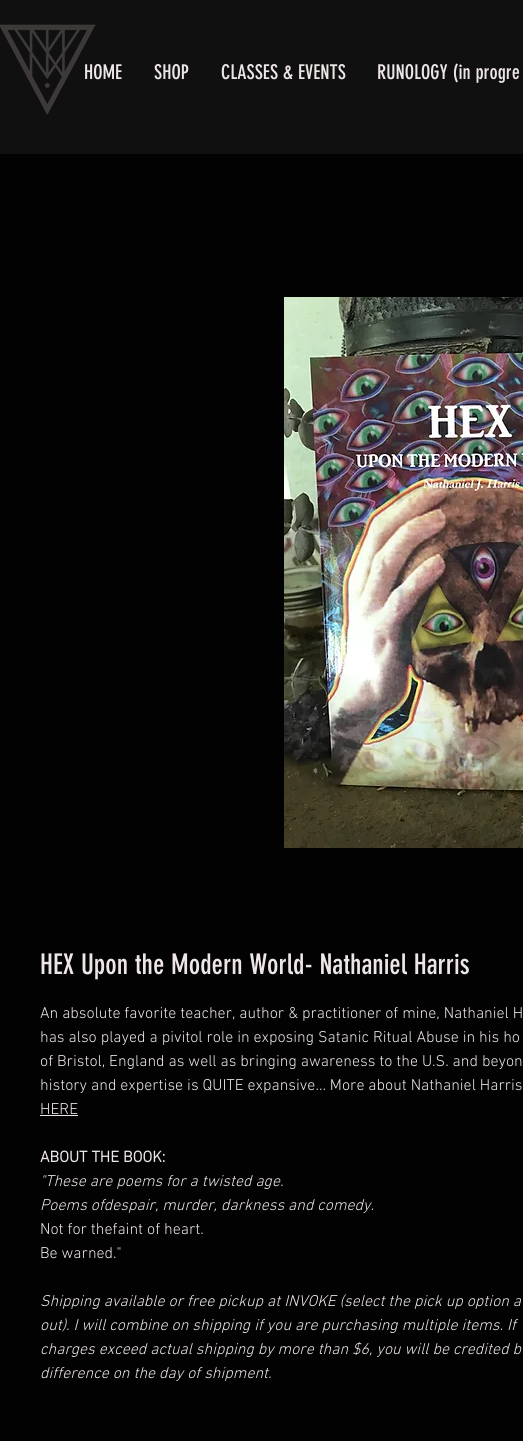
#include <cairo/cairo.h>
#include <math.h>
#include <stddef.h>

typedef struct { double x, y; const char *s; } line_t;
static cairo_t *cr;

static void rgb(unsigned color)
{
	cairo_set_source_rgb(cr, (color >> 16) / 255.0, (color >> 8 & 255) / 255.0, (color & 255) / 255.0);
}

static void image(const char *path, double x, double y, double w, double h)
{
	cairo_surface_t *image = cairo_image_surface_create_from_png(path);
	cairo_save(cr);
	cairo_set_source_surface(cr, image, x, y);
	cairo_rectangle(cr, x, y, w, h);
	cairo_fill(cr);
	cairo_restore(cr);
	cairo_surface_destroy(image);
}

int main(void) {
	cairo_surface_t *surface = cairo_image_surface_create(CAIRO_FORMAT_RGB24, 523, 1441);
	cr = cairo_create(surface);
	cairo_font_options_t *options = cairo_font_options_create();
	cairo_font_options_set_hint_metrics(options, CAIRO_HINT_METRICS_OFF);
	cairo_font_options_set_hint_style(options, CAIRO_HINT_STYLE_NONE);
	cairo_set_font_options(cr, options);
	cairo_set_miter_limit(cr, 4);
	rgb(0x020202);
	cairo_paint(cr);
	rgb(0x101010);
	cairo_rectangle(cr, 0, 0, 523, 154);
	cairo_fill(cr);
	image("img/1.png", 0, 24, 96, 91);
	image("img/2.png", 284, 297, 239, 551);
	rgb(0xeee6e6);
	cairo_rectangle(cr, 40, 1115, 38, 1);
	cairo_fill(cr);
	cairo_select_font_face(cr, "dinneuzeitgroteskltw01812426", CAIRO_FONT_SLANT_NORMAL, CAIRO_FONT_WEIGHT_NORMAL);
	cairo_set_font_size(cr, 20);
	{
		static const line_t items[] = {
			{84, 79, "HOME"},
			{154, 79, "SHOP"},
			{221, 79, "CLASSES & EVENTS"},
			{377, 79, "RUNOLOGY (in progre"},
		};
		for (size_t i = 0; i < sizeof items / sizeof *items; i++) {
			cairo_move_to(cr, items[i].x, items[i].y);
			cairo_show_text(cr, items[i].s);
		}
	}
	cairo_set_font_size(cr, 28);
	cairo_move_to(cr, 40, 974);
	cairo_show_text(cr, "HEX Upon the Modern World- Nathaniel Harris");
	cairo_select_font_face(cr, "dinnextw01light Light", CAIRO_FONT_SLANT_NORMAL, CAIRO_FONT_WEIGHT_NORMAL);
	cairo_set_font_size(cr, 16);
	{
		static const line_t items[] = {
			{40, 1018, "An absolute favorite teacher, author & practitioner of mine, Nathaniel H"},
			{40, 1042, "has also played a pivitol role in exposing Satanic Ritual Abuse in his ho"},
			{40, 1066, "of Bristol, England as well as bringing awareness to the U.S. and beyon"},
			{40, 1090, "history and expertise is QUITE expansive... More about Nathaniel Harris"},
			{40, 1114, "HERE"},
		};
		for (size_t i = 0; i < sizeof items / sizeof *items; i++) {
			cairo_move_to(cr, items[i].x, items[i].y);
			cairo_show_text(cr, items[i].s);
		}
	}
	cairo_select_font_face(cr, "dinnextw01light", CAIRO_FONT_SLANT_NORMAL, CAIRO_FONT_WEIGHT_BOLD);
	cairo_move_to(cr, 40, 1162);
	cairo_show_text(cr, "ABOUT THE BOOK:");
	cairo_select_font_face(cr, "dinnextw01light Light", CAIRO_FONT_SLANT_ITALIC, CAIRO_FONT_WEIGHT_NORMAL);
	cairo_move_to(cr, 40, 1186);
	cairo_show_text(cr, "\"These are poems for a twisted age.");
	cairo_move_to(cr, 40, 1210);
	cairo_show_text(cr, "Poems ofdespair, murder, darkness and comedy.");
	cairo_select_font_face(cr, "dinnextw01light Light", CAIRO_FONT_SLANT_NORMAL, CAIRO_FONT_WEIGHT_NORMAL);
	cairo_move_to(cr, 40, 1234);
	cairo_show_text(cr, "Not for thefaint of heart.");
	cairo_move_to(cr, 40, 1258);
	cairo_show_text(cr, "Be warned.\"");
	cairo_select_font_face(cr, "dinnextw01light Light", CAIRO_FONT_SLANT_ITALIC, CAIRO_FONT_WEIGHT_NORMAL);
	{
		static const line_t items[] = {
			{40, 1306, "Shipping available or free pickup at INVOKE (select the pick up option a"},
			{40, 1330, "out). I will combine on shipping if you are purchasing multiple items. If"},
			{40, 1354, "charges exceed actual shipping by more than $6, you will be credited b"},
			{40, 1378, "difference on the day of shipment."},
		};
		for (size_t i = 0; i < sizeof items / sizeof *items; i++) {
			cairo_move_to(cr, items[i].x, items[i].y);
			cairo_show_text(cr, items[i].s);
		}
	}
	cairo_surface_write_to_png(surface, "page.png");
	cairo_font_options_destroy(options);
	cairo_destroy(cr);
	cairo_surface_destroy(surface);
	return 0;
}
